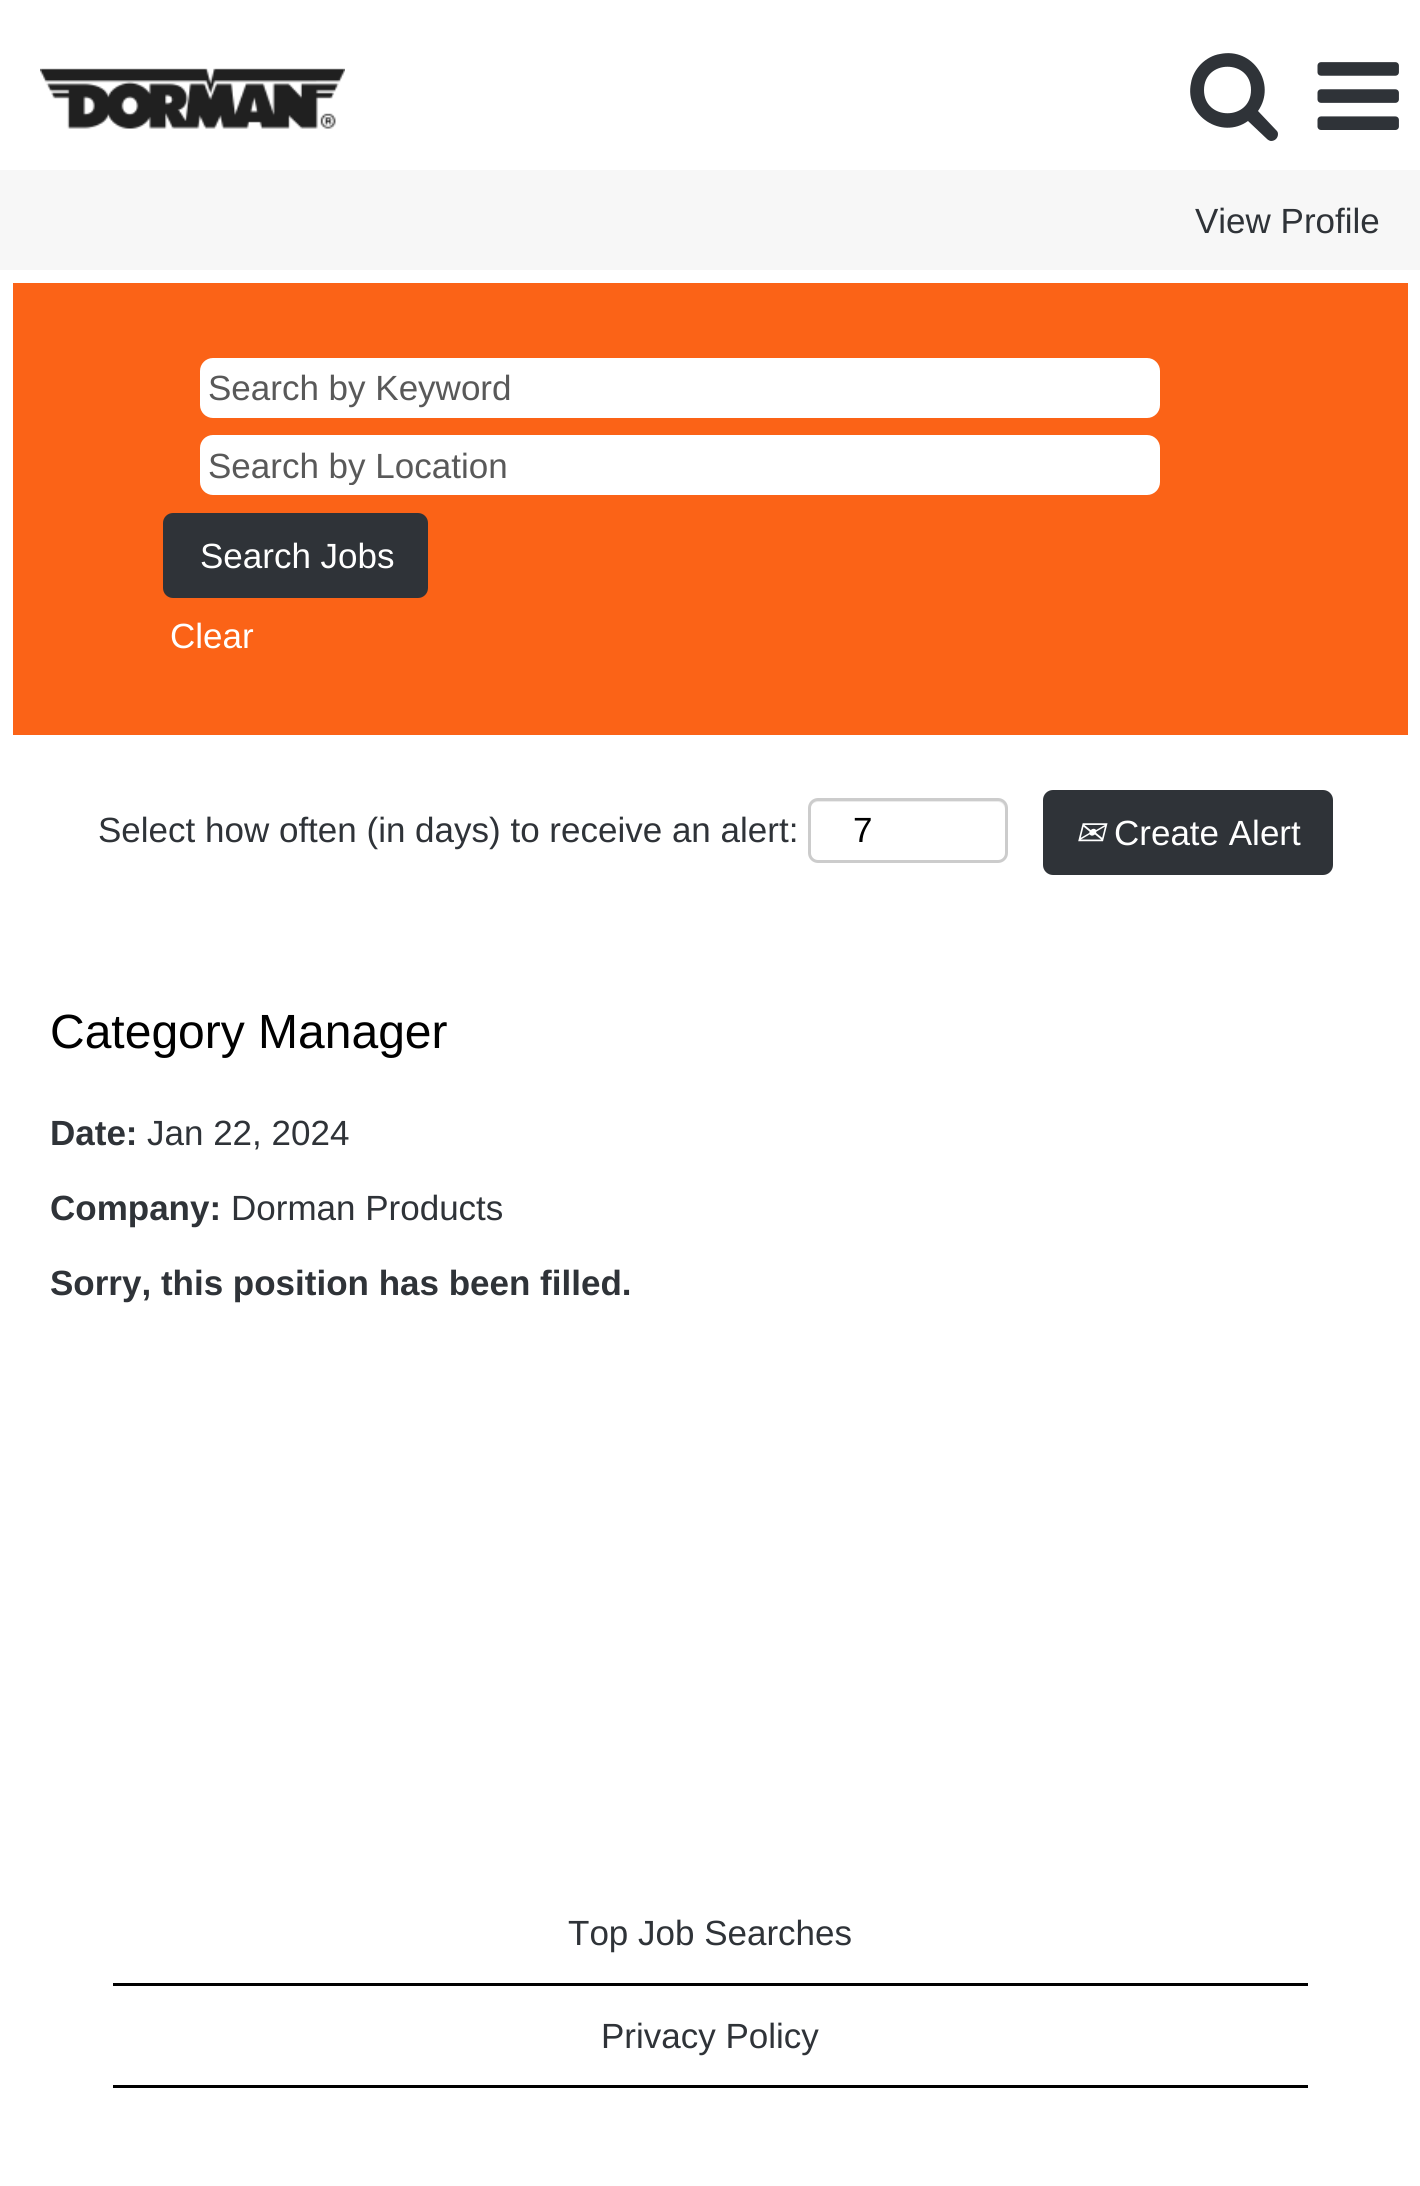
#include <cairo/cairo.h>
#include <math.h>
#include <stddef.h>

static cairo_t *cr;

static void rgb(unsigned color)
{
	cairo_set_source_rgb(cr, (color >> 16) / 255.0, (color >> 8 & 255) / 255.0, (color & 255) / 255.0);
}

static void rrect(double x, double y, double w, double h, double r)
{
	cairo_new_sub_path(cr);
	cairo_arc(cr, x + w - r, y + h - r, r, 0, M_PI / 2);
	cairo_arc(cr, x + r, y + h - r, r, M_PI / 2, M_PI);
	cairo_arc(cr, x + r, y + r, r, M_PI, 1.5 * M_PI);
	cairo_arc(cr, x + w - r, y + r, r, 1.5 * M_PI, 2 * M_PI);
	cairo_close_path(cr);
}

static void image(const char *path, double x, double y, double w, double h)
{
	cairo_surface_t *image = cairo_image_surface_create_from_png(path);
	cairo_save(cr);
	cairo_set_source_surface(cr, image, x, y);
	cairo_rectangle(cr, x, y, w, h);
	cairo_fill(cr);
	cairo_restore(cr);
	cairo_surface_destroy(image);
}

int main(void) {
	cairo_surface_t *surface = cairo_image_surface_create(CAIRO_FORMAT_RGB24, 1420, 2186);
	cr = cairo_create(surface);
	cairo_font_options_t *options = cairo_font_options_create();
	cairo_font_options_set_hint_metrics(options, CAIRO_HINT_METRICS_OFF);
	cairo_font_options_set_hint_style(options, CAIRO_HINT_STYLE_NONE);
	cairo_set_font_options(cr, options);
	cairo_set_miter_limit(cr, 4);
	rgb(0xffffff);
	cairo_paint(cr);
	image("img/1.png", 40, 68, 305, 61);
	rgb(0x2f3338);
	cairo_new_path(cr);
	cairo_move_to(cr, 1251, 90);
	cairo_curve_to(cr, 1251, 121, 1204, 121, 1204, 90);
	cairo_curve_to(cr, 1204, 59, 1251, 59, 1251, 90);
	cairo_close_path(cr);
	cairo_move_to(cr, 1278, 134);
	cairo_curve_to(cr, 1278, 132, 1277, 131, 1276, 130);
	cairo_line_to(cr, 1258, 111);
	cairo_curve_to(cr, 1277, 84, 1253, 47, 1220, 54);
	cairo_curve_to(cr, 1213, 55, 1206, 59, 1201, 64);
	cairo_curve_to(cr, 1196, 69, 1192, 76, 1191, 83);
	cairo_curve_to(cr, 1184, 116, 1222, 140, 1248, 121);
	cairo_line_to(cr, 1267, 139);
	cairo_curve_to(cr, 1268, 140, 1270, 141, 1271, 141);
	cairo_curve_to(cr, 1275, 141, 1278, 138, 1278, 134);
	cairo_close_path(cr);
	cairo_fill(cr);
	image("img/2.png", 1317, 62, 82, 68);
	rgb(0xf7f7f7);
	cairo_rectangle(cr, 0, 170, 1420, 100);
	cairo_fill(cr);
	rgb(0xfb6317);
	cairo_rectangle(cr, 13, 283, 1395, 452);
	cairo_fill(cr);
	rgb(0xffffff);
	rrect(200, 358, 960, 60, 13);
	cairo_fill(cr);
	rrect(200, 435, 960, 60, 13);
	cairo_fill(cr);
	rgb(0x2f3338);
	rrect(163, 513, 265, 85, 10);
	cairo_fill(cr);
	rgb(0xececec);
	cairo_new_path(cr);
	cairo_move_to(cr, 818, 802);
	cairo_line_to(cr, 998, 802);
	cairo_curve_to(cr, 1002, 802, 1005, 806, 1005, 810);
	cairo_line_to(cr, 1005, 808);
	cairo_curve_to(cr, 1005, 804, 1001, 800, 997, 800);
	cairo_line_to(cr, 818, 800);
	cairo_curve_to(cr, 814, 800, 810, 804, 810, 808);
	cairo_line_to(cr, 810, 810);
	cairo_curve_to(cr, 810, 806, 813, 802, 818, 802);
	cairo_close_path(cr);
	cairo_fill(cr);
	rrect(809.5, 799.5, 197, 62, 8.5);
	rgb(0xcccccc);
	cairo_set_line_width(cr, 3);
	cairo_stroke(cr);
	rgb(0x2f3338);
	rrect(1043, 790, 290, 85, 10);
	cairo_fill(cr);
	rgb(0x000000);
	cairo_rectangle(cr, 113, 1983, 1195, 3);
	cairo_fill(cr);
	cairo_rectangle(cr, 113, 2085, 1195, 3);
	cairo_fill(cr);
	cairo_select_font_face(cr, "Liberation Sans", CAIRO_FONT_SLANT_NORMAL, CAIRO_FONT_WEIGHT_NORMAL);
	cairo_set_font_size(cr, 35);
	rgb(0x2f3338);
	cairo_move_to(cr, 1195, 233);
	cairo_show_text(cr, "View Profile");
	rgb(0x595959);
	cairo_move_to(cr, 208, 400);
	cairo_show_text(cr, "Search by Keyword");
	cairo_save(cr);
	cairo_rectangle(cr, 203, 445, 955, 40);
	cairo_clip(cr);
	cairo_move_to(cr, 208, 478);
	cairo_show_text(cr, "Search by Location");
	cairo_restore(cr);
	rgb(0xffffff);
	cairo_move_to(cr, 200, 568);
	cairo_show_text(cr, "Search Jobs");
	cairo_move_to(cr, 170, 648);
	cairo_show_text(cr, "Clear");
	rgb(0x2f3338);
	cairo_move_to(cr, 98, 842);
	cairo_show_text(cr, "Select how often (in days) to receive an alert:");
	rgb(0x000000);
	cairo_move_to(cr, 853, 842);
	cairo_show_text(cr, "7");
	cairo_select_font_face(cr, "DejaVu Sans", CAIRO_FONT_SLANT_ITALIC, CAIRO_FONT_WEIGHT_NORMAL);
	rgb(0xffffff);
	cairo_move_to(cr, 1075, 845);
	cairo_show_text(cr, "✉");
	cairo_select_font_face(cr, "Liberation Sans", CAIRO_FONT_SLANT_NORMAL, CAIRO_FONT_WEIGHT_NORMAL);
	cairo_move_to(cr, 1114, 845);
	cairo_show_text(cr, "Create Alert");
	cairo_set_font_size(cr, 48);
	rgb(0x000000);
	cairo_move_to(cr, 50, 1048);
	cairo_show_text(cr, "Category Manager");
	cairo_select_font_face(cr, "Liberation Sans", CAIRO_FONT_SLANT_NORMAL, CAIRO_FONT_WEIGHT_BOLD);
	cairo_set_font_size(cr, 35);
	rgb(0x2f3338);
	cairo_move_to(cr, 50, 1145);
	cairo_show_text(cr, "Date:");
	cairo_select_font_face(cr, "Liberation Sans", CAIRO_FONT_SLANT_NORMAL, CAIRO_FONT_WEIGHT_NORMAL);
	cairo_move_to(cr, 147, 1145);
	cairo_show_text(cr, "Jan 22, 2024");
	cairo_select_font_face(cr, "Liberation Sans", CAIRO_FONT_SLANT_NORMAL, CAIRO_FONT_WEIGHT_BOLD);
	cairo_move_to(cr, 50, 1220);
	cairo_show_text(cr, "Company:");
	cairo_select_font_face(cr, "Liberation Sans", CAIRO_FONT_SLANT_NORMAL, CAIRO_FONT_WEIGHT_NORMAL);
	cairo_move_to(cr, 231, 1220);
	cairo_show_text(cr, "Dorman Products");
	cairo_select_font_face(cr, "Liberation Sans", CAIRO_FONT_SLANT_NORMAL, CAIRO_FONT_WEIGHT_BOLD);
	cairo_move_to(cr, 50, 1295);
	cairo_show_text(cr, "Sorry, this position has been filled.");
	cairo_select_font_face(cr, "Liberation Sans", CAIRO_FONT_SLANT_NORMAL, CAIRO_FONT_WEIGHT_NORMAL);
	cairo_move_to(cr, 568, 1945);
	cairo_show_text(cr, "Top Job Searches");
	cairo_move_to(cr, 601, 2048);
	cairo_show_text(cr, "Privacy Policy");
	cairo_surface_write_to_png(surface, "page.png");
	cairo_font_options_destroy(options);
	cairo_destroy(cr);
	cairo_surface_destroy(surface);
	return 0;
}
